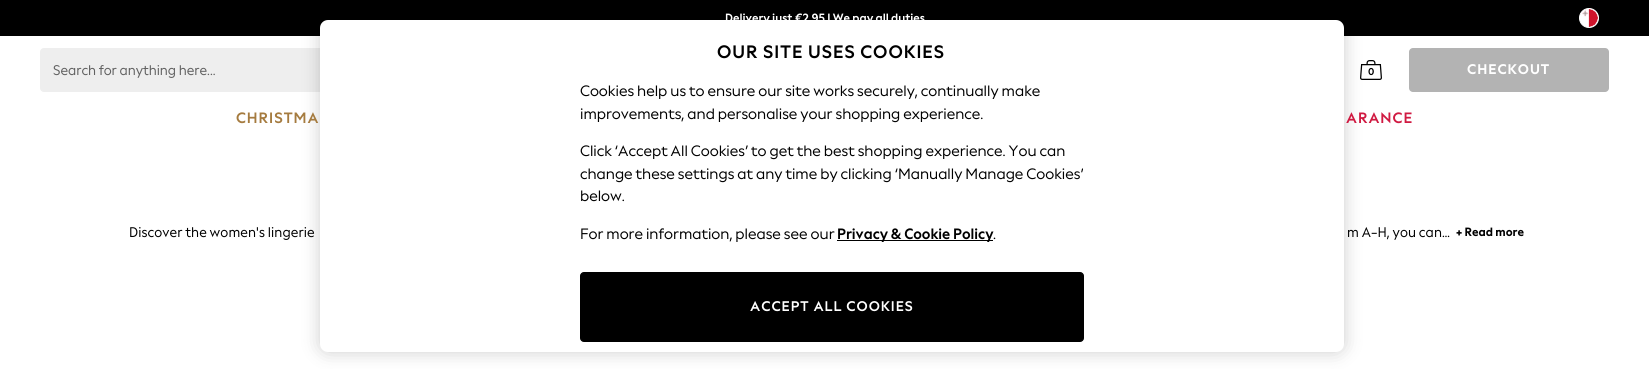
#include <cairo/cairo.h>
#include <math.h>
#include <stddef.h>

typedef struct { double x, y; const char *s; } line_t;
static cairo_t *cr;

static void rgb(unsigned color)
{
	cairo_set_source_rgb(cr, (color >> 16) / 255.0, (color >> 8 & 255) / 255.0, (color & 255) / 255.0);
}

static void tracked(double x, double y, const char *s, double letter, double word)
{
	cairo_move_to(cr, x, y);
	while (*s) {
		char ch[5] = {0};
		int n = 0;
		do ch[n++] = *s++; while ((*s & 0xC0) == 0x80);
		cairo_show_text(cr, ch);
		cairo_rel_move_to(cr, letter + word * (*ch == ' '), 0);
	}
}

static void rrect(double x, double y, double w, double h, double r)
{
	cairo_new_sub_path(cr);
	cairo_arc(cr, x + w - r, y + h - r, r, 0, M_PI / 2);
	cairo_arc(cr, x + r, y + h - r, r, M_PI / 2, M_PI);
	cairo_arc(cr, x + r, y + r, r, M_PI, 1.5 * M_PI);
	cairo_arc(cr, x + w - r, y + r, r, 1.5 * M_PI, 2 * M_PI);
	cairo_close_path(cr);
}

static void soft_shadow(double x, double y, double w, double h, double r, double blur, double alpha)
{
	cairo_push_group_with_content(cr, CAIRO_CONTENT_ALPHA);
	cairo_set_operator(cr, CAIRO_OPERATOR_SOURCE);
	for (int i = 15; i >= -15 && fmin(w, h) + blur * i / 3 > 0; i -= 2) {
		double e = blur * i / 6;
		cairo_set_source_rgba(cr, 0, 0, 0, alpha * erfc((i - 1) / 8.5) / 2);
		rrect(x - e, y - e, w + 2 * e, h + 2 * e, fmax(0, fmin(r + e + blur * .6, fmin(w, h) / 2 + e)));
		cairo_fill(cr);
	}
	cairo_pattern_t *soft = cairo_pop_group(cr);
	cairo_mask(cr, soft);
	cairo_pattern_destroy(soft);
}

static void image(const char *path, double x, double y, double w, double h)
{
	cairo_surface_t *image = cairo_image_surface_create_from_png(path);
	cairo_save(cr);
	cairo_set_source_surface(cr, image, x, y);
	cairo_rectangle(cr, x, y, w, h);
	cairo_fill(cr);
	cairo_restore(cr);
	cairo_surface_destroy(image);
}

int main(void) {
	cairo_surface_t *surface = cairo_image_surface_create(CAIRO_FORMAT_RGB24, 1649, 369);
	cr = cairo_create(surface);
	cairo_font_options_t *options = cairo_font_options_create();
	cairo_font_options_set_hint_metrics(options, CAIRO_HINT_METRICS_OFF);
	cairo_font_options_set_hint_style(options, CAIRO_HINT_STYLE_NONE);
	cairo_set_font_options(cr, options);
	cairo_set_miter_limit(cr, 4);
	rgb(0xffffff);
	cairo_paint(cr);
	rgb(0x000000);
	cairo_rectangle(cr, 0, 0, 1649, 36);
	cairo_fill(cr);
	rgb(0xffffff);
	cairo_arc(cr, 1589, 18, 9.5, 0, 2 * M_PI);
	cairo_fill_preserve(cr);
	cairo_set_line_width(cr, 1);
	cairo_stroke(cr);
	image("img/1.png", 1582, 9, 16, 18);
	rgb(0xeeeeee);
	rrect(40.5, 48.5, 393, 43, 3.5);
	cairo_fill_preserve(cr);
	cairo_stroke(cr);
	image("img/2.png", 1360, 60, 22, 20);
	rgb(0xb3b3b3);
	rrect(1409, 48, 200, 44, 4);
	cairo_fill(cr);
	rgb(0x000000);
	soft_shadow(320, 20, 1024, 332, 8, 9, 0.2);
	rgb(0xffffff);
	rrect(320, 20, 1024, 332, 8);
	cairo_fill(cr);
	rgb(0x000000);
	cairo_rectangle(cr, 837, 240, 156, 1);
	cairo_fill(cr);
	rrect(580.5, 272.5, 503, 69, 3.5);
	cairo_fill_preserve(cr);
	cairo_stroke(cr);
	cairo_select_font_face(cr, "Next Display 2", CAIRO_FONT_SLANT_NORMAL, CAIRO_FONT_WEIGHT_BOLD);
	cairo_set_font_size(cr, 12);
	rgb(0xffffff);
	cairo_move_to(cr, 725, 22);
	cairo_show_text(cr, "Delivery just €2.95 | We pay all duties");
	cairo_select_font_face(cr, "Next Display", CAIRO_FONT_SLANT_NORMAL, CAIRO_FONT_WEIGHT_NORMAL);
	cairo_set_font_size(cr, 14);
	rgb(0x616161);
	cairo_move_to(cr, 53, 75);
	cairo_show_text(cr, "Search for anything here...");
	cairo_select_font_face(cr, "Next Display 2", CAIRO_FONT_SLANT_NORMAL, CAIRO_FONT_WEIGHT_BOLD);
	cairo_set_font_size(cr, 10);
	rgb(0x000000);
	cairo_move_to(cr, 1368, 75);
	cairo_show_text(cr, "0");
	cairo_select_font_face(cr, "Next Display 2 ExtraBold", CAIRO_FONT_SLANT_NORMAL, CAIRO_FONT_WEIGHT_NORMAL);
	cairo_set_font_size(cr, 14);
	rgb(0xffffff);
	tracked(1467, 74, "CHECKOUT", 1, 0);
	cairo_select_font_face(cr, "Next Display", CAIRO_FONT_SLANT_NORMAL, CAIRO_FONT_WEIGHT_BOLD);
	cairo_set_font_size(cr, 15);
	rgb(0xa57b3f);
	tracked(236, 123, "CHRISTMA", 1, 0);
	rgb(0xd01a42);
	tracked(1346, 123, "ARANCE", 1, 0);
	cairo_set_font_size(cr, 18);
	rgb(0x000000);
	tracked(717, 58, "OUR SITE USES COOKIES", 1, 0);
	cairo_select_font_face(cr, "Next Display 2", CAIRO_FONT_SLANT_NORMAL, CAIRO_FONT_WEIGHT_NORMAL);
	cairo_set_font_size(cr, 15);
	{
		static const line_t items[] = {
			{580, 96, "Cookies help us to ensure our site works securely, continually make"},
			{580, 119, "improvements, and personalise your shopping experience."},
			{580, 156, "Click ‘Accept All Cookies’ to get the best shopping experience. You can"},
			{580, 179, "change these settings at any time by clicking ‘Manually Manage Cookies’"},
			{580, 201, "below."},
			{580, 239, "For more information, please see our"},
		};
		for (size_t i = 0; i < sizeof items / sizeof *items; i++) {
			cairo_move_to(cr, items[i].x, items[i].y);
			cairo_show_text(cr, items[i].s);
		}
	}
	cairo_select_font_face(cr, "Next Display 2", CAIRO_FONT_SLANT_NORMAL, CAIRO_FONT_WEIGHT_BOLD);
	cairo_move_to(cr, 837, 239);
	cairo_show_text(cr, "Privacy & Cookie Policy");
	cairo_select_font_face(cr, "Next Display 2", CAIRO_FONT_SLANT_NORMAL, CAIRO_FONT_WEIGHT_NORMAL);
	cairo_move_to(cr, 993, 239);
	cairo_show_text(cr, ".");
	cairo_select_font_face(cr, "Next Display", CAIRO_FONT_SLANT_NORMAL, CAIRO_FONT_WEIGHT_BOLD);
	cairo_set_font_size(cr, 14);
	rgb(0xffffff);
	tracked(750, 311, "ACCEPT ALL COOKIES", 1, 0);
	cairo_select_font_face(cr, "Next Display", CAIRO_FONT_SLANT_NORMAL, CAIRO_FONT_WEIGHT_NORMAL);
	rgb(0x000000);
	tracked(129, 237, "Discover the women's lingerie", 0.1, 0);
	tracked(1347, 237, "m A-H, you can…", 0.1, 0);
	cairo_select_font_face(cr, "Next Display ExtraBold", CAIRO_FONT_SLANT_NORMAL, CAIRO_FONT_WEIGHT_NORMAL);
	cairo_set_font_size(cr, 12);
	cairo_move_to(cr, 1456, 236);
	cairo_show_text(cr, "+ Read more");
	cairo_surface_write_to_png(surface, "page.png");
	cairo_font_options_destroy(options);
	cairo_destroy(cr);
	cairo_surface_destroy(surface);
	return 0;
}
